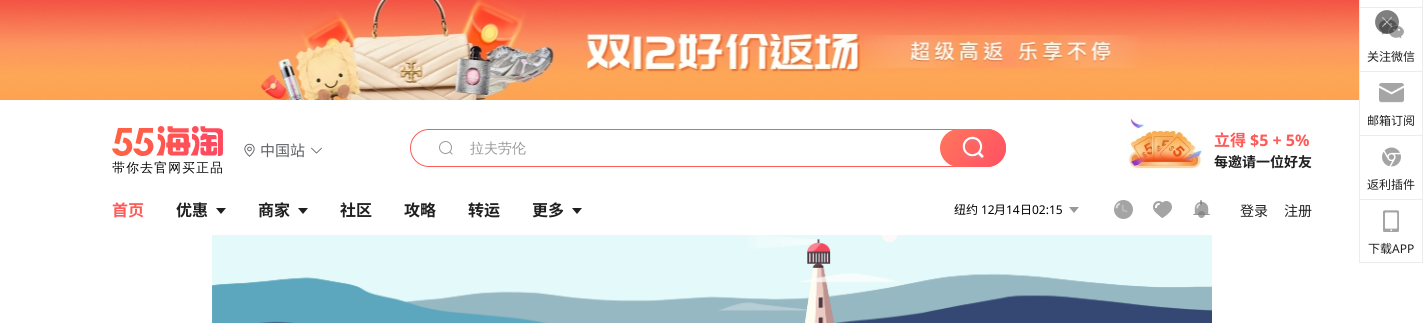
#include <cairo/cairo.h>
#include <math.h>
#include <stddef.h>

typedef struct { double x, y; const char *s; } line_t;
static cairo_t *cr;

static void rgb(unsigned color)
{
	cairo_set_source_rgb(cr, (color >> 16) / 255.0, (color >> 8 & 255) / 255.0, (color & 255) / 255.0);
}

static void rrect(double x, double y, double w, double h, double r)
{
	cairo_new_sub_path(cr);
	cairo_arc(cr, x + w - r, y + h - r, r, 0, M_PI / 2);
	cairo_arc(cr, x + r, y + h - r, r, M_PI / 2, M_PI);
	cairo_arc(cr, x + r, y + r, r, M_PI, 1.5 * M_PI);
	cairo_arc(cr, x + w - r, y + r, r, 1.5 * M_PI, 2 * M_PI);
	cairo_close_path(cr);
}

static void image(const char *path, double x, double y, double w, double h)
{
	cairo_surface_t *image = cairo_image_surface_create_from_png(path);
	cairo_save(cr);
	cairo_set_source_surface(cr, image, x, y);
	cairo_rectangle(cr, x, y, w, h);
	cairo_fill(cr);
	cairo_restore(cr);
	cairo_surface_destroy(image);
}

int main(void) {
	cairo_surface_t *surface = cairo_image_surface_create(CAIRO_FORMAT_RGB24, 1423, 323);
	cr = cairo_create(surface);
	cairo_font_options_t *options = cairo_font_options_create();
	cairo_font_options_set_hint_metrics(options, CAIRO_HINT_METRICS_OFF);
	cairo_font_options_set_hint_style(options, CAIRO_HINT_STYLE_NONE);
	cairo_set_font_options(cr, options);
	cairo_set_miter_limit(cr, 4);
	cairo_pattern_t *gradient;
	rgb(0xffffff);
	cairo_paint(cr);
	image("img/1.png", 0, 0, 1359, 100);
	cairo_rectangle(cr, 1359.5, 7.5, 63, 63);
	rgb(0xececec);
	cairo_set_line_width(cr, 1);
	cairo_stroke(cr);
	image("img/7.png", 1379, 19, 25, 20);
	image("img/2.png", 1375, 10, 24, 24);
	image("img/3.png", 112, 126, 111, 48);
	image("img/4.png", 244, 143, 11, 14);
	image("img/5.png", 311, 147, 11, 7);
	image("img/6.png", 1127, 117, 75, 53);
	cairo_rectangle(cr, 1359.5, -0.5, 63, 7);
	cairo_stroke(cr);
	rgb(0xffffff);
	cairo_rectangle(cr, 1360, 6, 62, 1);
	cairo_fill(cr);
	cairo_rectangle(cr, 1360, 70, 62, 1);
	cairo_fill(cr);
	cairo_rectangle(cr, 1359.5, 71.5, 63, 63);
	rgb(0xececec);
	cairo_stroke(cr);
	image("img/8.png", 1379, 83, 25, 20);
	rgb(0xffffff);
	cairo_rectangle(cr, 1360, 134, 62, 1);
	cairo_fill(cr);
	cairo_rectangle(cr, 1359.5, 135.5, 63, 63);
	rgb(0xececec);
	cairo_stroke(cr);
	image("img/9.png", 1382, 147, 19, 20);
	rgb(0xffffff);
	cairo_rectangle(cr, 1360, 198, 62, 1);
	cairo_fill(cr);
	cairo_rectangle(cr, 1359.5, 199.5, 63, 63);
	rgb(0xececec);
	cairo_stroke(cr);
	image("img/10.png", 1383, 210, 16, 22);
	rrect(410.5, 129.5, 595, 37, 18.5);
	rgb(0xfe5a58);
	cairo_stroke(cr);
	image("img/11.png", 439, 141, 14, 14);
	gradient = cairo_pattern_create_linear(944, 124, 1002, 172);
	cairo_pattern_add_color_stop_rgba(gradient, 0, 1, 0.467, 0.361, 1);
	cairo_pattern_add_color_stop_rgba(gradient, 1, 1, 0.314, 0.388, 1);
	cairo_set_source(cr, gradient);
	cairo_pattern_destroy(gradient);
	rrect(940, 129, 66, 38, 19);
	cairo_fill(cr);
	image("img/12.png", 962, 136, 23, 25);
	rgb(0x1f1f1f);
	cairo_new_path(cr);
	cairo_move_to(cr, 216, 208);
	cairo_line_to(cr, 221, 214);
	cairo_line_to(cr, 226, 208);
	cairo_close_path(cr);
	cairo_fill(cr);
	cairo_new_path(cr);
	cairo_move_to(cr, 298, 208);
	cairo_line_to(cr, 303, 214);
	cairo_line_to(cr, 308, 208);
	cairo_close_path(cr);
	cairo_fill(cr);
	cairo_new_path(cr);
	cairo_move_to(cr, 572, 208);
	cairo_line_to(cr, 577, 214);
	cairo_line_to(cr, 582, 208);
	cairo_close_path(cr);
	cairo_fill(cr);
	rgb(0x999999);
	cairo_new_path(cr);
	cairo_move_to(cr, 1069, 207);
	cairo_line_to(cr, 1074, 213);
	cairo_line_to(cr, 1079, 207);
	cairo_close_path(cr);
	cairo_fill(cr);
	image("img/13.png", 1114, 200, 19, 19);
	image("img/14.png", 1153, 201, 19, 17);
	image("img/15.png", 1193, 200, 17, 18);
	image("img/16.png", 212, 235, 1000, 88);
	cairo_select_font_face(cr, "Noto Sans CJK SC", CAIRO_FONT_SLANT_NORMAL, CAIRO_FONT_WEIGHT_NORMAL);
	cairo_set_font_size(cr, 15);
	rgb(0x606266);
	cairo_move_to(cr, 260, 156);
	cairo_show_text(cr, "中国站");
	cairo_select_font_face(cr, "Noto Sans CJK SC", CAIRO_FONT_SLANT_NORMAL, CAIRO_FONT_WEIGHT_BOLD);
	cairo_set_font_size(cr, 16);
	rgb(0xfe5a58);
	cairo_move_to(cr, 1214, 146);
	cairo_show_text(cr, "立得");
	cairo_select_font_face(cr, "Noto Sans", CAIRO_FONT_SLANT_NORMAL, CAIRO_FONT_WEIGHT_BOLD);
	cairo_move_to(cr, 1250, 146);
	cairo_show_text(cr, "$5 + 5%");
	cairo_select_font_face(cr, "Noto Sans CJK SC", CAIRO_FONT_SLANT_NORMAL, CAIRO_FONT_WEIGHT_BOLD);
	cairo_set_font_size(cr, 14);
	rgb(0x1f1f1f);
	cairo_move_to(cr, 1214, 167);
	cairo_show_text(cr, "每邀请一位好友");
	cairo_select_font_face(cr, "Noto Sans CJK SC", CAIRO_FONT_SLANT_NORMAL, CAIRO_FONT_WEIGHT_NORMAL);
	cairo_set_font_size(cr, 12);
	{
		static const line_t items[] = {
			{1367, 61, "关注微信"},
			{1367, 125, "邮箱订阅"},
			{1367, 189, "返利插件"},
			{1368, 253, "下载"},
		};
		for (size_t i = 0; i < sizeof items / sizeof *items; i++) {
			cairo_move_to(cr, items[i].x, items[i].y);
			cairo_show_text(cr, items[i].s);
		}
	}
	cairo_select_font_face(cr, "Noto Sans", CAIRO_FONT_SLANT_NORMAL, CAIRO_FONT_WEIGHT_NORMAL);
	cairo_move_to(cr, 1392, 253);
	cairo_show_text(cr, "APP");
	cairo_select_font_face(cr, "WenQuanYi Zen Hei Medium", CAIRO_FONT_SLANT_NORMAL, CAIRO_FONT_WEIGHT_NORMAL);
	cairo_set_font_size(cr, 14);
	rgb(0x999999);
	cairo_move_to(cr, 470, 153);
	cairo_show_text(cr, "拉夫劳伦");
	cairo_select_font_face(cr, "Noto Sans CJK SC", CAIRO_FONT_SLANT_NORMAL, CAIRO_FONT_WEIGHT_BOLD);
	cairo_set_font_size(cr, 16);
	rgb(0xfe5a58);
	cairo_move_to(cr, 112, 216);
	cairo_show_text(cr, "首页");
	rgb(0x1f1f1f);
	{
		static const line_t items[] = {
			{176, 216, "优惠"},
			{258, 216, "商家"},
			{340, 216, "社区"},
			{404, 216, "攻略"},
			{468, 216, "转运"},
			{532, 216, "更多"},
		};
		for (size_t i = 0; i < sizeof items / sizeof *items; i++) {
			cairo_move_to(cr, items[i].x, items[i].y);
			cairo_show_text(cr, items[i].s);
		}
	}
	cairo_select_font_face(cr, "Noto Sans CJK SC", CAIRO_FONT_SLANT_NORMAL, CAIRO_FONT_WEIGHT_NORMAL);
	cairo_set_font_size(cr, 12);
	rgb(0x000000);
	cairo_move_to(cr, 954, 214);
	cairo_show_text(cr, "纽约");
	cairo_select_font_face(cr, "Noto Sans", CAIRO_FONT_SLANT_NORMAL, CAIRO_FONT_WEIGHT_NORMAL);
	cairo_move_to(cr, 981, 214);
	cairo_show_text(cr, "12");
	cairo_select_font_face(cr, "Noto Sans CJK SC", CAIRO_FONT_SLANT_NORMAL, CAIRO_FONT_WEIGHT_NORMAL);
	cairo_move_to(cr, 994, 214);
	cairo_show_text(cr, "月");
	cairo_select_font_face(cr, "Noto Sans", CAIRO_FONT_SLANT_NORMAL, CAIRO_FONT_WEIGHT_NORMAL);
	cairo_move_to(cr, 1006, 214);
	cairo_show_text(cr, "14");
	cairo_select_font_face(cr, "Noto Sans CJK SC", CAIRO_FONT_SLANT_NORMAL, CAIRO_FONT_WEIGHT_NORMAL);
	cairo_move_to(cr, 1020, 214);
	cairo_show_text(cr, "日");
	cairo_select_font_face(cr, "Noto Sans", CAIRO_FONT_SLANT_NORMAL, CAIRO_FONT_WEIGHT_NORMAL);
	cairo_move_to(cr, 1032, 214);
	cairo_show_text(cr, "02:15");
	cairo_select_font_face(cr, "Noto Sans CJK SC", CAIRO_FONT_SLANT_NORMAL, CAIRO_FONT_WEIGHT_NORMAL);
	cairo_set_font_size(cr, 14);
	rgb(0x1f1f1f);
	cairo_move_to(cr, 1240, 216);
	cairo_show_text(cr, "登录");
	cairo_move_to(cr, 1284, 216);
	cairo_show_text(cr, "注册");
	cairo_surface_write_to_png(surface, "page.png");
	cairo_font_options_destroy(options);
	cairo_destroy(cr);
	cairo_surface_destroy(surface);
	return 0;
}
